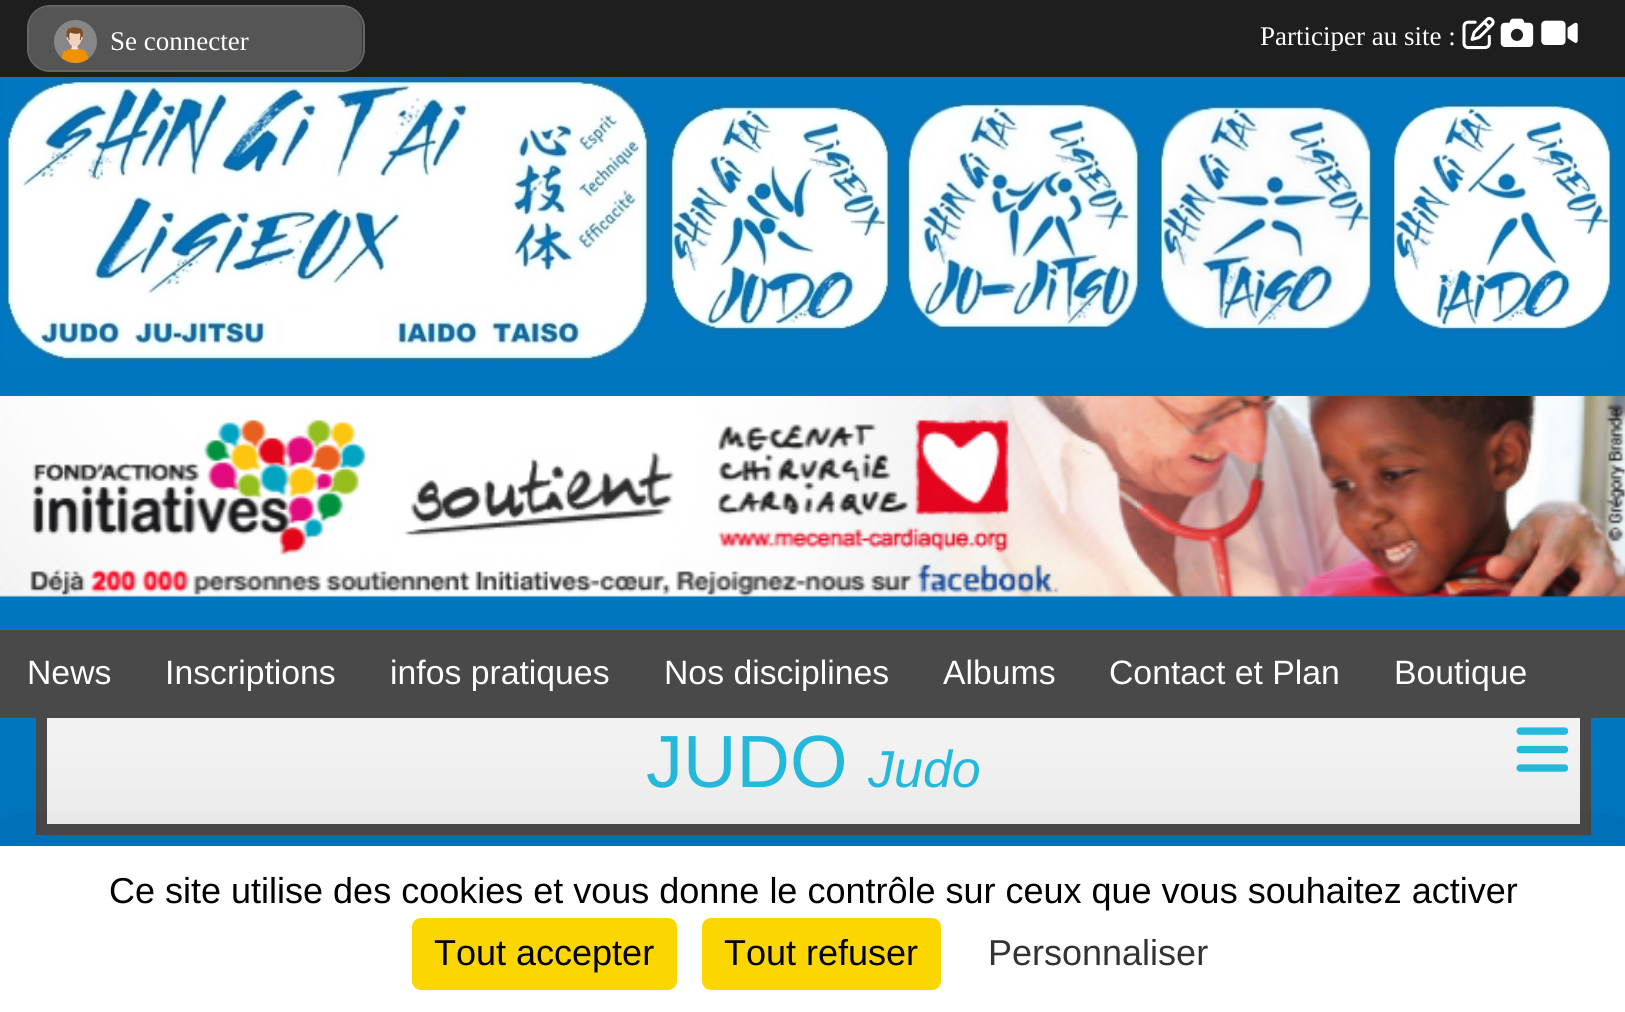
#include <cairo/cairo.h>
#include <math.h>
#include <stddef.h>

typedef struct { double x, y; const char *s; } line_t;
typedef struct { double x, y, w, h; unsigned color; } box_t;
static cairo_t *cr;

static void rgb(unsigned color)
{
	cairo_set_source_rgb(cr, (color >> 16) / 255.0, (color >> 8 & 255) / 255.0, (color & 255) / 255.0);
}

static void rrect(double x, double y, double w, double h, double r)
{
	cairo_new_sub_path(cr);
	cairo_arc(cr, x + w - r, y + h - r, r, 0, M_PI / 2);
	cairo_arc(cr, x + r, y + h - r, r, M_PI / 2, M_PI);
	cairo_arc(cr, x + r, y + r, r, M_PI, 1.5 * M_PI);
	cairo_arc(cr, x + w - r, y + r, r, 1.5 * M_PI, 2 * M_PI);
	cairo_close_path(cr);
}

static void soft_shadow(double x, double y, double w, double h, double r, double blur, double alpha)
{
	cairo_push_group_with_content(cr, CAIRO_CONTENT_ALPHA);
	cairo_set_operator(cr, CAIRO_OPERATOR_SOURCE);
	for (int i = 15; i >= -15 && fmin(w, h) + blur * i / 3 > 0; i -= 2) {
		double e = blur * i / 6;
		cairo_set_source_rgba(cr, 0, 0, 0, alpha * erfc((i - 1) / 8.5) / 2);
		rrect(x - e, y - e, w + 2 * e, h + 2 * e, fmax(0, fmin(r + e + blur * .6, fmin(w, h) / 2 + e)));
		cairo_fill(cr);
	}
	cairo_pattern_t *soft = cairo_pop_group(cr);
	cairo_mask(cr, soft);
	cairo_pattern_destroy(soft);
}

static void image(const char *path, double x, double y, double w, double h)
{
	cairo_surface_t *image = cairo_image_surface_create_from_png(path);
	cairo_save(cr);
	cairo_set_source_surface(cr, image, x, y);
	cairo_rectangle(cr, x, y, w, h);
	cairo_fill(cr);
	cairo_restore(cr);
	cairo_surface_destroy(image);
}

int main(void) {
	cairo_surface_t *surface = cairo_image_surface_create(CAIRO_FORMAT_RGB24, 1625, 1012);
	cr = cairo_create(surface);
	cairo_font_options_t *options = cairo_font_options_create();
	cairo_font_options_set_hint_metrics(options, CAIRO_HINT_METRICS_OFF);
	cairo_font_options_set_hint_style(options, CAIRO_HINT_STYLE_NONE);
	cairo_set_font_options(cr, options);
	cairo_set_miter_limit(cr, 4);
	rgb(0x0076c0);
	cairo_paint(cr);
	rgb(0x1e1e1e);
	cairo_rectangle(cr, 0, 0, 1625, 77);
	cairo_fill(cr);
	rgb(0x333333);
	rrect(28, 6, 336, 65, 22);
	cairo_fill_preserve(cr);
	rgb(0x666666);
	cairo_stroke(cr);
	rgb(0x555555);
	rrect(29, 7, 333, 63, 20);
	cairo_fill(cr);
	image("img/1.png", 54, 20, 43, 43);
	image("img/2.png", 1462, 16, 33, 34);
	image("img/3.png", 1500, 18, 34, 29);
	image("img/4.png", 1541, 20, 37, 25);
	image("img/5.png", 4, 77, 1609, 285);
	image("img/6.png", 0, 396, 1625, 201);
	{
		static const box_t items[] = {
			{0, 630, 1625, 88, 0x494949},
			{47, 718, 1533, 106, 0xf2f2f2},
			{1580, 718, 11, 106, 0x494949},
			{47, 824, 1544, 11, 0x494949},
			{36, 718, 11, 117, 0x494949},
		};
		for (size_t i = 0; i < sizeof items / sizeof *items; i++) {
			rgb(items[i].color);
			cairo_rectangle(cr, items[i].x, items[i].y, items[i].w, items[i].h);
			cairo_fill(cr);
		}
	}
	image("img/7.png", 1516, 727, 53, 45);
	rgb(0x000000);
	soft_shadow(0, 891, 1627, 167, 0, 67.5, 0.25);
	rgb(0xffffff);
	cairo_rectangle(cr, 0, 846, 1625, 166);
	cairo_fill(cr);
	rgb(0xfbd600);
	rrect(412, 918, 265, 72, 9);
	cairo_fill(cr);
	rrect(702, 918, 239, 72, 9);
	cairo_fill(cr);
	cairo_select_font_face(cr, "Liberation Serif", CAIRO_FONT_SLANT_NORMAL, CAIRO_FONT_WEIGHT_NORMAL);
	cairo_set_font_size(cr, 27);
	rgb(0xffffff);
	cairo_move_to(cr, 110, 50);
	cairo_show_text(cr, "Se connecter");
	cairo_move_to(cr, 1260, 45);
	cairo_show_text(cr, "Participer au site :");
	cairo_select_font_face(cr, "Liberation Sans", CAIRO_FONT_SLANT_NORMAL, CAIRO_FONT_WEIGHT_NORMAL);
	cairo_set_font_size(cr, 33.75);
	{
		static const line_t items[] = {
			{27, 684, "News"},
			{165, 684, "Inscriptions"},
			{390, 684, "infos pratiques"},
			{664, 684, "Nos disciplines"},
			{943, 684, "Albums"},
			{1109, 684, "Contact et Plan"},
			{1394, 684, "Boutique"},
		};
		for (size_t i = 0; i < sizeof items / sizeof *items; i++) {
			cairo_move_to(cr, items[i].x, items[i].y);
			cairo_show_text(cr, items[i].s);
		}
	}
	cairo_set_font_size(cr, 74);
	rgb(0x24b9da);
	cairo_move_to(cr, 646, 787);
	cairo_show_text(cr, "JUDO");
	cairo_select_font_face(cr, "Liberation Sans", CAIRO_FONT_SLANT_ITALIC, CAIRO_FONT_WEIGHT_NORMAL);
	cairo_set_font_size(cr, 52);
	cairo_move_to(cr, 868, 787);
	cairo_show_text(cr, "Judo");
	cairo_select_font_face(cr, "Liberation Sans", CAIRO_FONT_SLANT_NORMAL, CAIRO_FONT_WEIGHT_NORMAL);
	cairo_set_font_size(cr, 36);
	rgb(0x000000);
	{
		static const line_t items[] = {
			{109, 903, "Ce site utilise des cookies et vous donne le contrôle sur ceux que vous souhaitez activer"},
			{434, 965, "Tout accepter"},
			{724, 965, "Tout refuser"},
		};
		for (size_t i = 0; i < sizeof items / sizeof *items; i++) {
			cairo_move_to(cr, items[i].x, items[i].y);
			cairo_show_text(cr, items[i].s);
		}
	}
	rgb(0x333333);
	cairo_move_to(cr, 988, 965);
	cairo_show_text(cr, "Personnaliser");
	cairo_surface_write_to_png(surface, "page.png");
	cairo_font_options_destroy(options);
	cairo_destroy(cr);
	cairo_surface_destroy(surface);
	return 0;
}
